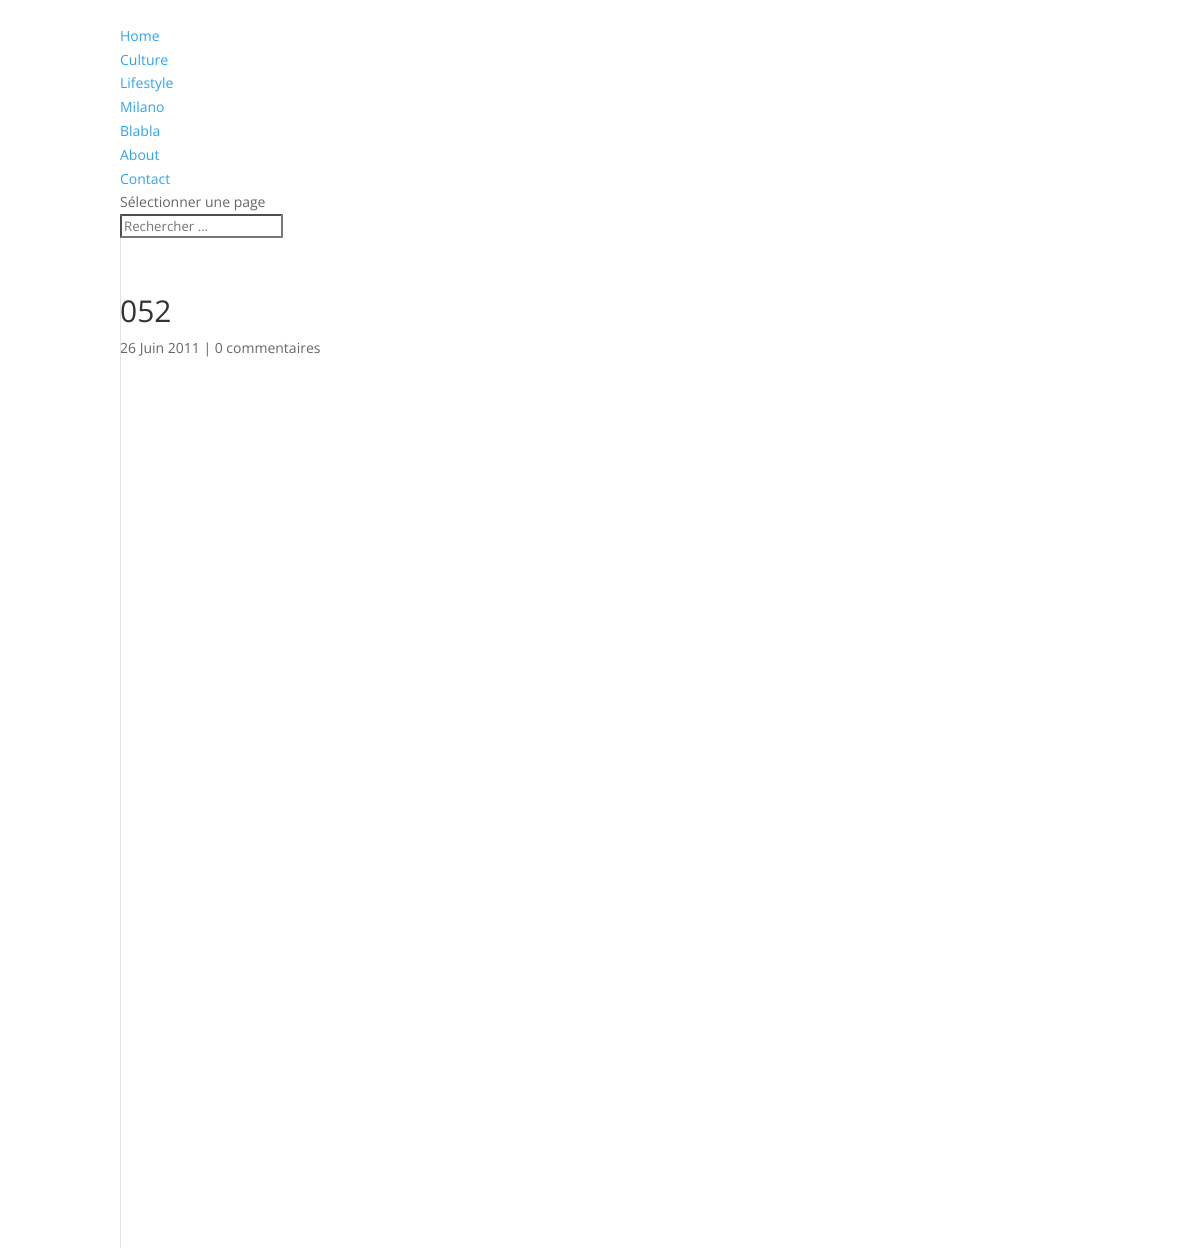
#include <cairo/cairo.h>
#include <math.h>
#include <stddef.h>

typedef struct { double x, y; const char *s; } line_t;
static cairo_t *cr;

static void rgb(unsigned color)
{
	cairo_set_source_rgb(cr, (color >> 16) / 255.0, (color >> 8 & 255) / 255.0, (color & 255) / 255.0);
}

int main(void) {
	cairo_surface_t *surface = cairo_image_surface_create(CAIRO_FORMAT_RGB24, 1200, 1248);
	cr = cairo_create(surface);
	cairo_font_options_t *options = cairo_font_options_create();
	cairo_font_options_set_hint_metrics(options, CAIRO_HINT_METRICS_OFF);
	cairo_font_options_set_hint_style(options, CAIRO_HINT_STYLE_NONE);
	cairo_set_font_options(cr, options);
	cairo_set_miter_limit(cr, 4);
	rgb(0xffffff);
	cairo_paint(cr);
	rgb(0x4f4f4f);
	cairo_new_path(cr);
	cairo_move_to(cr, 120, 214);
	cairo_line_to(cr, 283, 214);
	cairo_line_to(cr, 281, 216);
	cairo_line_to(cr, 122, 216);
	cairo_close_path(cr);
	cairo_fill(cr);
	rgb(0x767676);
	cairo_new_path(cr);
	cairo_move_to(cr, 283, 214);
	cairo_line_to(cr, 283, 238);
	cairo_line_to(cr, 281, 236);
	cairo_line_to(cr, 281, 216);
	cairo_close_path(cr);
	cairo_fill(cr);
	cairo_new_path(cr);
	cairo_move_to(cr, 283, 238);
	cairo_line_to(cr, 120, 238);
	cairo_line_to(cr, 122, 236);
	cairo_line_to(cr, 281, 236);
	cairo_close_path(cr);
	cairo_fill(cr);
	rgb(0x4f4f4f);
	cairo_new_path(cr);
	cairo_move_to(cr, 120, 238);
	cairo_line_to(cr, 120, 214);
	cairo_line_to(cr, 122, 216);
	cairo_line_to(cr, 122, 236);
	cairo_close_path(cr);
	cairo_fill(cr);
	cairo_select_font_face(cr, "Open Sans", CAIRO_FONT_SLANT_NORMAL, CAIRO_FONT_WEIGHT_NORMAL);
	cairo_set_font_size(cr, 14);
	rgb(0x2ea3f2);
	{
		static const line_t items[] = {
			{120, 41, "Home"},
			{120, 65, "Culture"},
			{120, 88, "Lifestyle"},
			{120, 112, "Milano"},
			{120, 136, "Blabla"},
			{120, 160, "About"},
			{120, 184, "Contact"},
		};
		for (size_t i = 0; i < sizeof items / sizeof *items; i++) {
			cairo_move_to(cr, items[i].x, items[i].y);
			cairo_show_text(cr, items[i].s);
		}
	}
	rgb(0x666666);
	cairo_move_to(cr, 120, 207);
	cairo_show_text(cr, "Sélectionner une page");
	cairo_set_font_size(cr, 13.25);
	rgb(0x757575);
	cairo_move_to(cr, 124, 231);
	cairo_show_text(cr, "Rechercher …");
	cairo_set_font_size(cr, 30);
	rgb(0x333333);
	cairo_move_to(cr, 120, 322);
	cairo_show_text(cr, "052");
	cairo_set_font_size(cr, 14);
	rgb(0x666666);
	cairo_move_to(cr, 120, 353);
	cairo_show_text(cr, "26 Juin 2011 | 0 commentaires");
	rgb(0xe2e2e2);
	cairo_rectangle(cr, 120, 238, 1, 1010);
	cairo_fill(cr);
	cairo_surface_write_to_png(surface, "page.png");
	cairo_font_options_destroy(options);
	cairo_destroy(cr);
	cairo_surface_destroy(surface);
	return 0;
}
